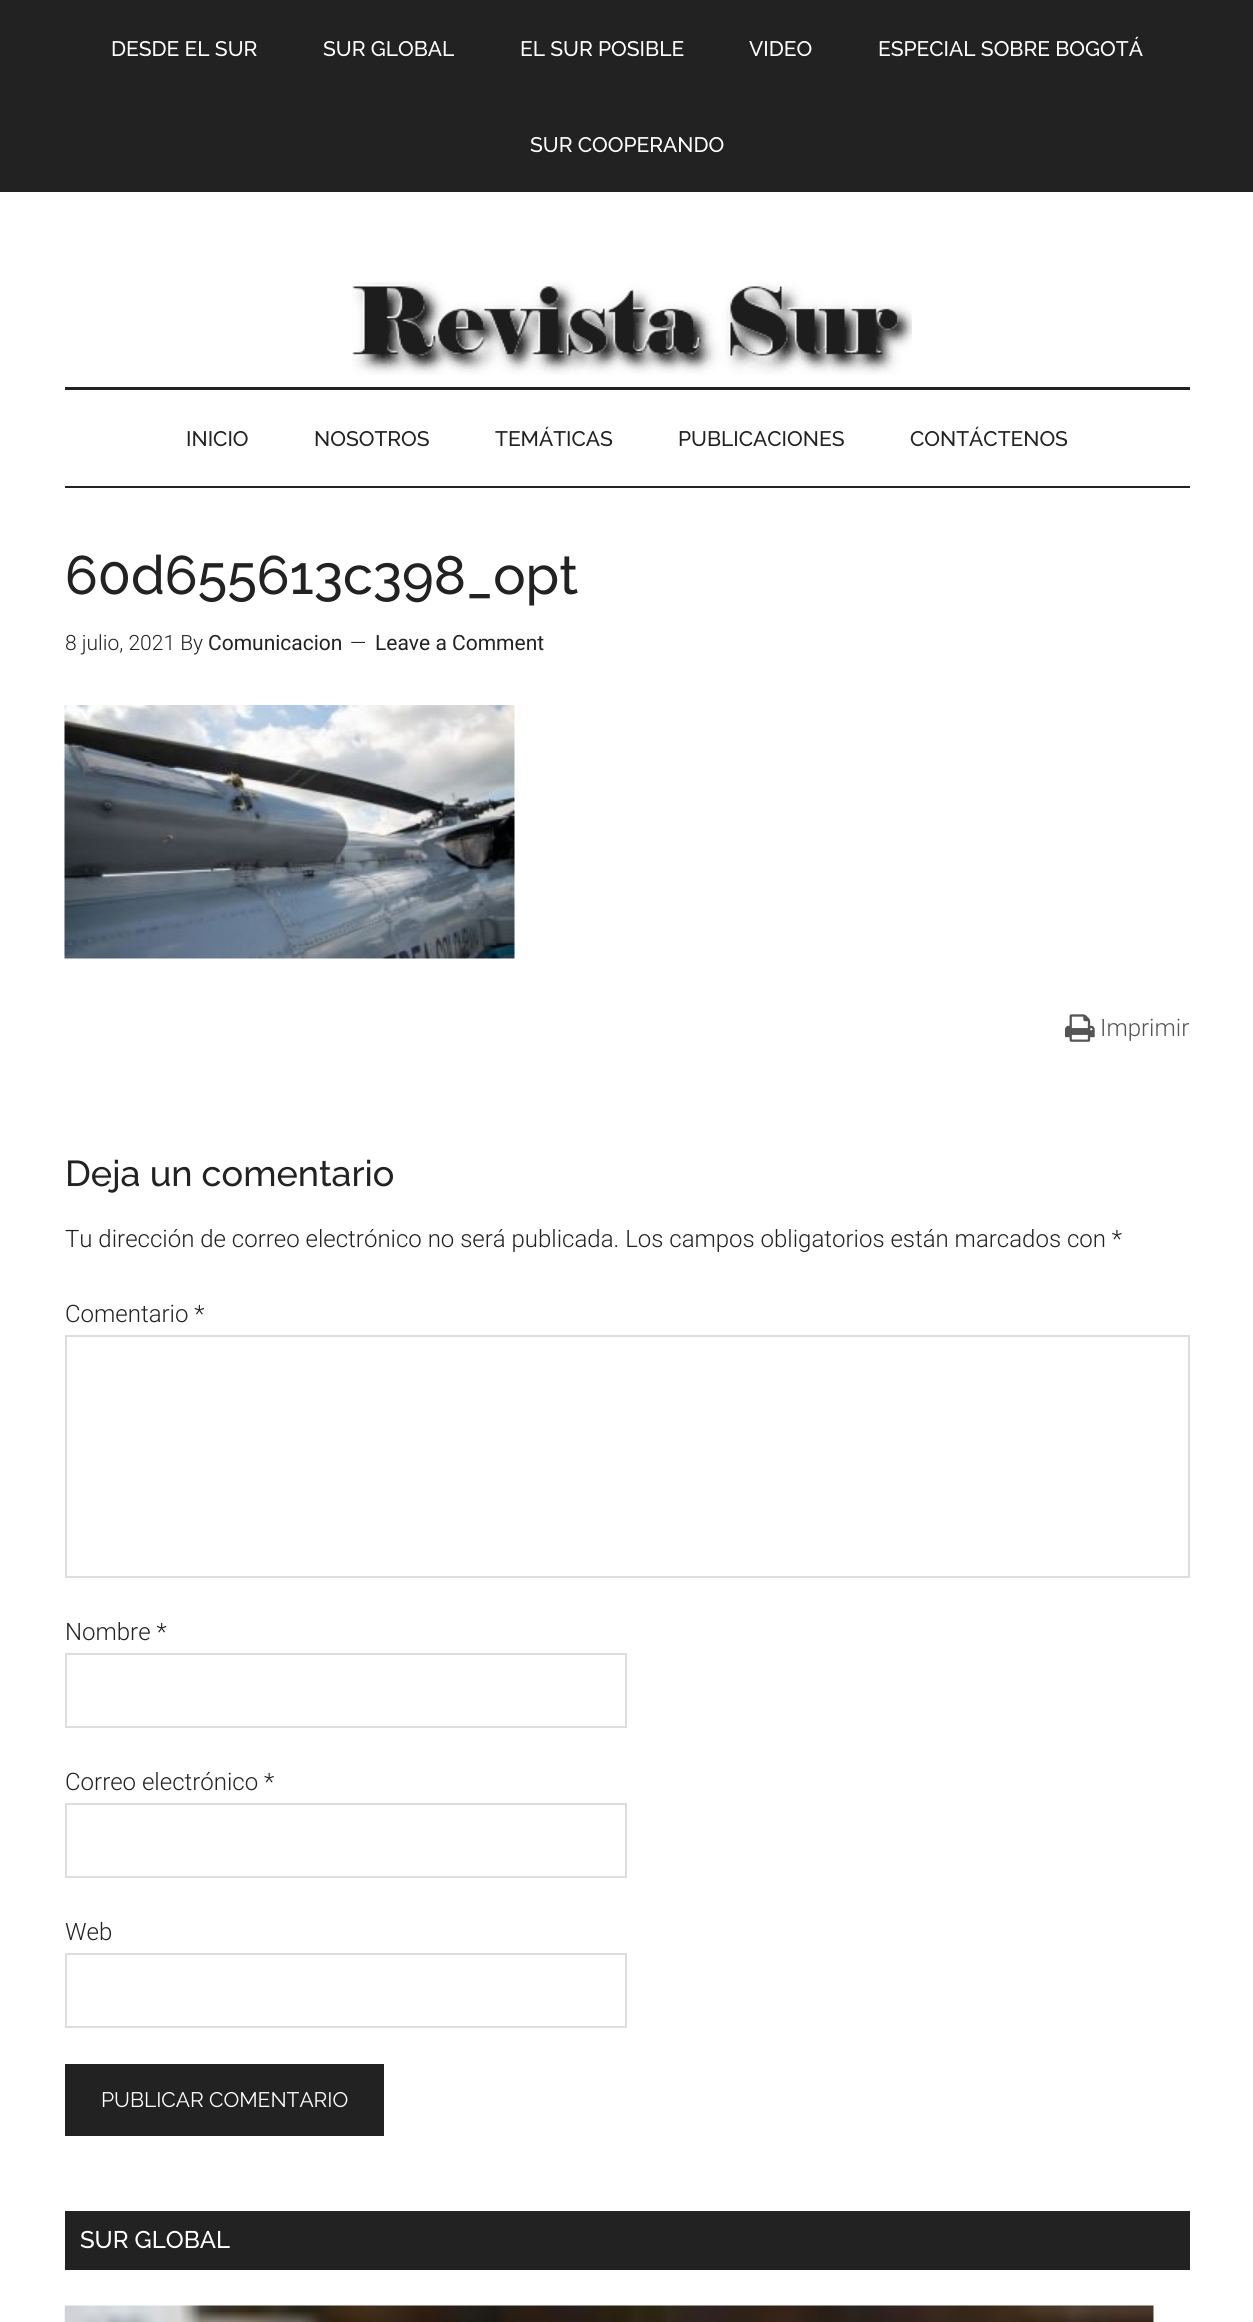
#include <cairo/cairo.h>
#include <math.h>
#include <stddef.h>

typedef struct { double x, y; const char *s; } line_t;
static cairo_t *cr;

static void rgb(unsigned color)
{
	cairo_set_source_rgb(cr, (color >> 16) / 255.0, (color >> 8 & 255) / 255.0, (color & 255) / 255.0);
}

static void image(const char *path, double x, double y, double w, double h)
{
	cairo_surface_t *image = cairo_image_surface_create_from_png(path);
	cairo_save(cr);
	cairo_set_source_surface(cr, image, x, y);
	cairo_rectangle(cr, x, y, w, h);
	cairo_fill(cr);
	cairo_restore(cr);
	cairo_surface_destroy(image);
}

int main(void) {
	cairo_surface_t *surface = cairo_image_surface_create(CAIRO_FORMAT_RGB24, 1253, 2322);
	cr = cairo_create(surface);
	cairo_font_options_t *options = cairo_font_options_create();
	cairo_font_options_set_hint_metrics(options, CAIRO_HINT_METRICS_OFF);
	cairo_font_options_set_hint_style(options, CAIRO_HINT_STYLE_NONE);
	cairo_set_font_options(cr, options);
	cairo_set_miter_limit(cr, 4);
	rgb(0xffffff);
	cairo_paint(cr);
	rgb(0x222222);
	cairo_rectangle(cr, 0, 0, 1253, 192);
	cairo_fill(cr);
	cairo_rectangle(cr, 65, 387, 1125, 3);
	cairo_fill(cr);
	image("img/1.png", 352, 281, 560, 94);
	cairo_rectangle(cr, 65, 486, 1125, 2);
	cairo_fill(cr);
	image("img/2.png", 64, 705, 451, 254);
	image("img/3.png", 1065, 1014, 30, 28);
	cairo_rectangle(cr, 66, 1336, 1123, 241);
	rgb(0xdddddd);
	cairo_stroke(cr);
	cairo_rectangle(cr, 66, 1654, 560, 73);
	cairo_stroke(cr);
	cairo_rectangle(cr, 66, 1804, 560, 73);
	cairo_stroke(cr);
	cairo_rectangle(cr, 66, 1954, 560, 73);
	cairo_stroke(cr);
	rgb(0x222222);
	cairo_rectangle(cr, 65, 2064, 319, 72);
	cairo_fill(cr);
	cairo_rectangle(cr, 65, 2211, 1125, 59);
	cairo_fill(cr);
	image("img/4.png", 64, 2305, 1090, 17);
	cairo_select_font_face(cr, "Raleway Medium", CAIRO_FONT_SLANT_NORMAL, CAIRO_FONT_WEIGHT_NORMAL);
	cairo_set_font_size(cr, 21);
	rgb(0xffffff);
	{
		static const line_t items[] = {
			{111, 56, "DESDE EL SUR"},
			{323, 56, "SUR GLOBAL"},
			{520, 56, "EL SUR POSIBLE"},
			{749, 56, "VIDEO"},
			{878, 56, "ESPECIAL SOBRE BOGOTÁ"},
			{530, 152, "SUR COOPERANDO"},
		};
		for (size_t i = 0; i < sizeof items / sizeof *items; i++) {
			cairo_move_to(cr, items[i].x, items[i].y);
			cairo_show_text(cr, items[i].s);
		}
	}
	rgb(0x222222);
	{
		static const line_t items[] = {
			{186, 446, "INICIO"},
			{314, 446, "NOSOTROS"},
			{495, 446, "TEMÁTICAS"},
			{678, 446, "PUBLICACIONES"},
			{910, 446, "CONTÁCTENOS"},
		};
		for (size_t i = 0; i < sizeof items / sizeof *items; i++) {
			cairo_move_to(cr, items[i].x, items[i].y);
			cairo_show_text(cr, items[i].s);
		}
	}
	cairo_set_font_size(cr, 54);
	cairo_move_to(cr, 65, 594);
	cairo_show_text(cr, "60d655613c398_opt");
	cairo_select_font_face(cr, "Roboto Light", CAIRO_FONT_SLANT_NORMAL, CAIRO_FONT_WEIGHT_NORMAL);
	cairo_set_font_size(cr, 21);
	cairo_move_to(cr, 65, 650);
	cairo_show_text(cr, "8 julio, 2021 By");
	cairo_select_font_face(cr, "Roboto", CAIRO_FONT_SLANT_NORMAL, CAIRO_FONT_WEIGHT_NORMAL);
	cairo_move_to(cr, 208, 650);
	cairo_show_text(cr, "Comunicacion");
	cairo_select_font_face(cr, "Roboto Light", CAIRO_FONT_SLANT_NORMAL, CAIRO_FONT_WEIGHT_NORMAL);
	cairo_move_to(cr, 350, 650);
	cairo_show_text(cr, "—");
	cairo_select_font_face(cr, "Roboto", CAIRO_FONT_SLANT_NORMAL, CAIRO_FONT_WEIGHT_NORMAL);
	cairo_move_to(cr, 375, 650);
	cairo_show_text(cr, "Leave a Comment");
	cairo_select_font_face(cr, "Roboto Light", CAIRO_FONT_SLANT_NORMAL, CAIRO_FONT_WEIGHT_NORMAL);
	cairo_set_font_size(cr, 24);
	rgb(0x555555);
	cairo_move_to(cr, 1100, 1036);
	cairo_show_text(cr, "Imprimir");
	cairo_select_font_face(cr, "Raleway Medium", CAIRO_FONT_SLANT_NORMAL, CAIRO_FONT_WEIGHT_NORMAL);
	cairo_set_font_size(cr, 36);
	rgb(0x222222);
	cairo_move_to(cr, 65, 1186);
	cairo_show_text(cr, "Deja un comentario");
	cairo_select_font_face(cr, "Roboto Light", CAIRO_FONT_SLANT_NORMAL, CAIRO_FONT_WEIGHT_NORMAL);
	cairo_set_font_size(cr, 24);
	{
		static const line_t items[] = {
			{65, 1247, "Tu dirección de correo electrónico no será publicada. Los campos obligatorios están marcados con *"},
			{65, 1322, "Comentario *"},
			{65, 1640, "Nombre *"},
			{65, 1790, "Correo electrónico *"},
			{65, 1940, "Web"},
		};
		for (size_t i = 0; i < sizeof items / sizeof *items; i++) {
			cairo_move_to(cr, items[i].x, items[i].y);
			cairo_show_text(cr, items[i].s);
		}
	}
	cairo_select_font_face(cr, "Raleway", CAIRO_FONT_SLANT_NORMAL, CAIRO_FONT_WEIGHT_NORMAL);
	cairo_set_font_size(cr, 21);
	rgb(0xffffff);
	cairo_move_to(cr, 101, 2107);
	cairo_show_text(cr, "PUBLICAR COMENTARIO");
	cairo_select_font_face(cr, "Raleway Medium", CAIRO_FONT_SLANT_NORMAL, CAIRO_FONT_WEIGHT_NORMAL);
	cairo_set_font_size(cr, 24);
	cairo_move_to(cr, 80, 2248);
	cairo_show_text(cr, "SUR GLOBAL");
	cairo_surface_write_to_png(surface, "page.png");
	cairo_font_options_destroy(options);
	cairo_destroy(cr);
	cairo_surface_destroy(surface);
	return 0;
}
